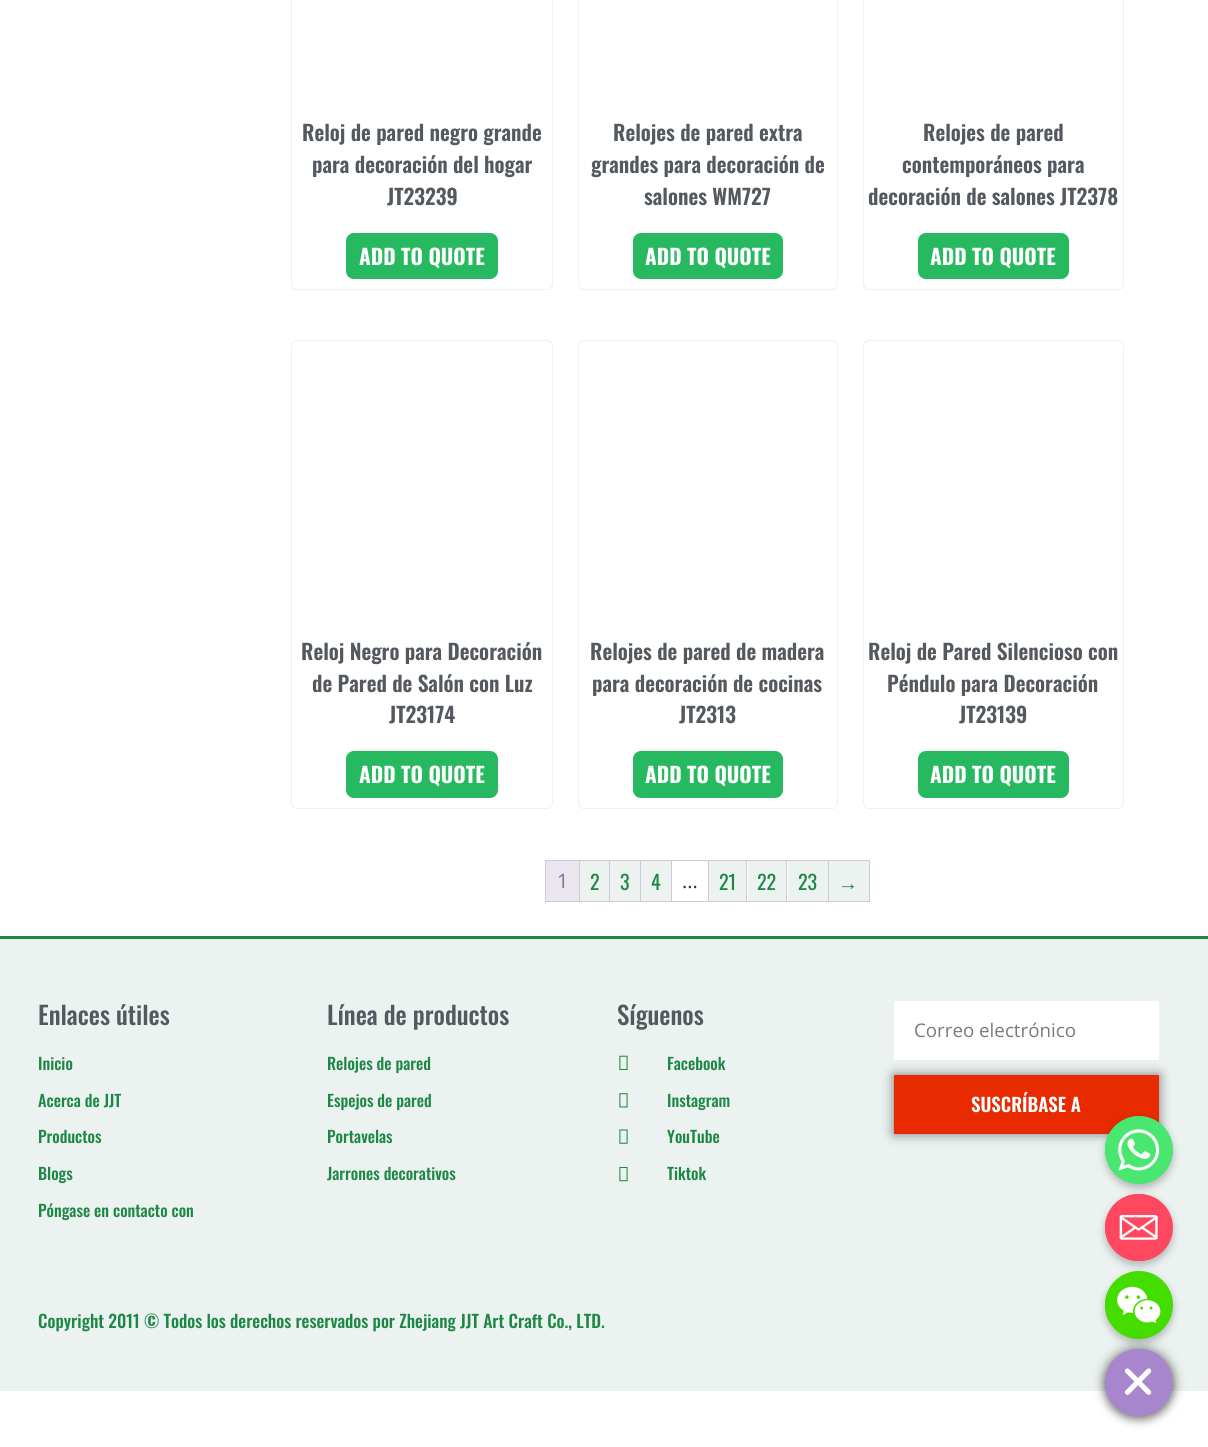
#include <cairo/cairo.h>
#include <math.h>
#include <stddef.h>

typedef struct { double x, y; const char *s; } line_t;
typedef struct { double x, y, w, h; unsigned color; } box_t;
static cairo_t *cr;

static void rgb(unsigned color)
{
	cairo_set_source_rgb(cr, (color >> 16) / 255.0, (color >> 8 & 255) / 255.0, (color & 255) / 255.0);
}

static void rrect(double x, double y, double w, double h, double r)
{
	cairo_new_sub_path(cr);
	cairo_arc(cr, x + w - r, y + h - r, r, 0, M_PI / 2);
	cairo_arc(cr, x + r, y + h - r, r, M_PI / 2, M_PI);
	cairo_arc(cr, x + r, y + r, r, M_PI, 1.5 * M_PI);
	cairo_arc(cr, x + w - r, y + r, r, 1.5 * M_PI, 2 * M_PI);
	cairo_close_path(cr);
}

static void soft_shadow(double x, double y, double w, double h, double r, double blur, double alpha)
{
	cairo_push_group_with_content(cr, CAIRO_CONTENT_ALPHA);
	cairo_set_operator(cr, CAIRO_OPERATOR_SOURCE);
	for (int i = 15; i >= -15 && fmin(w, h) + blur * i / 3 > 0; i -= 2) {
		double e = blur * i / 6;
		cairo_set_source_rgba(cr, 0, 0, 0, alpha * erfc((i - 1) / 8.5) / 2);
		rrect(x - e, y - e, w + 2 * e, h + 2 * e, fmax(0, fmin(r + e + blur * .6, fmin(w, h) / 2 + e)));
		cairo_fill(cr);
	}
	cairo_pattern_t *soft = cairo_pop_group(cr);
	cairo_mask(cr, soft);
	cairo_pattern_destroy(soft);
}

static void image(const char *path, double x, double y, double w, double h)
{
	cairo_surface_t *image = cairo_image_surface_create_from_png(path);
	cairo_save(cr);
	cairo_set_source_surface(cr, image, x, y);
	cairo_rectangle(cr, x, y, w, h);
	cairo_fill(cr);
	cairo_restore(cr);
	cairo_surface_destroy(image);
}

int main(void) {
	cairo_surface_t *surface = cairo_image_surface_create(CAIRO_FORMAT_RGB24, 1208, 1447);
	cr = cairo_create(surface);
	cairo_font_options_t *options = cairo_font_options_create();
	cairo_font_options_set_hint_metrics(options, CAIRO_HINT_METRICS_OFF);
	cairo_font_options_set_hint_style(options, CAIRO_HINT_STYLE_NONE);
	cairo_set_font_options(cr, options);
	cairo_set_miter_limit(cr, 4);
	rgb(0xffffff);
	cairo_paint(cr);
	rrect(291.5, -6.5, 261, 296, 5.5);
	rgb(0xebf2f0);
	cairo_set_line_width(cr, 1);
	cairo_stroke(cr);
	rgb(0x27b95f);
	rrect(346, 233, 152, 46, 8);
	cairo_fill(cr);
	rrect(578.5, -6.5, 259, 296, 5.5);
	rgb(0xebf2f0);
	cairo_stroke(cr);
	rgb(0x27b95f);
	rrect(633, 233, 150, 46, 8);
	cairo_fill(cr);
	rrect(863.5, -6.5, 260, 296, 5.5);
	rgb(0xebf2f0);
	cairo_stroke(cr);
	rgb(0x27b95f);
	rrect(918, 233, 151, 46, 8);
	cairo_fill(cr);
	rrect(291.5, 340.5, 261, 468, 5.5);
	rgb(0xebf2f0);
	cairo_stroke(cr);
	rgb(0x27b95f);
	rrect(346, 751, 152, 47, 8);
	cairo_fill(cr);
	rrect(578.5, 340.5, 259, 468, 5.5);
	rgb(0xebf2f0);
	cairo_stroke(cr);
	rgb(0x27b95f);
	rrect(633, 751, 150, 47, 8);
	cairo_fill(cr);
	rrect(863.5, 340.5, 260, 468, 5.5);
	rgb(0xebf2f0);
	cairo_stroke(cr);
	rgb(0x27b95f);
	rrect(918, 751, 151, 47, 8);
	cairo_fill(cr);
	{
		static const box_t items[] = {
			{545, 860, 325, 1, 0xcfc8d8},
			{545, 901, 325, 1, 0xcfc8d8},
			{545, 860, 1, 43, 0xcfc8d8},
			{579, 861, 1, 40, 0xcfc8d8},
			{546, 861, 33, 40, 0xe9e6ed},
			{609, 861, 1, 40, 0xcfc8d8},
			{580, 861, 29, 40, 0xebf2f0},
			{640, 861, 1, 40, 0xcfc8d8},
			{610, 861, 30, 40, 0xebf2f0},
			{671, 861, 1, 40, 0xcfc8d8},
			{641, 861, 30, 40, 0xebf2f0},
			{708, 861, 1, 40, 0xcfc8d8},
			{746, 861, 1, 40, 0xcfc8d8},
			{709, 861, 37, 40, 0xebf2f0},
			{786, 861, 1, 40, 0xcfc8d8},
			{748, 861, 38, 40, 0xebf2f0},
			{828, 861, 1, 40, 0xcfc8d8},
			{788, 861, 40, 40, 0xebf2f0},
			{869, 861, 1, 40, 0xcfc8d8},
			{829, 861, 40, 40, 0xebf2f0},
			{0, 939, 1208, 452, 0xebf2f0},
			{0, 936, 1208, 3, 0x1d8745},
		};
		for (size_t i = 0; i < sizeof items / sizeof *items; i++) {
			rgb(items[i].color);
			cairo_rectangle(cr, items[i].x, items[i].y, items[i].w, items[i].h);
			cairo_fill(cr);
		}
	}
	image("img/1.png", 619, 1055, 9, 15);
	image("img/2.png", 619, 1093, 9, 15);
	image("img/3.png", 619, 1129, 9, 15);
	image("img/4.png", 619, 1166, 9, 16);
	rgb(0xffffff);
	cairo_rectangle(cr, 894, 1001, 265, 59);
	cairo_fill(cr);
	rgb(0x000000);
	soft_shadow(894, 1075, 265, 59, 0, 6, 0.5);
	rgb(0xe82a00);
	cairo_rectangle(cr, 894, 1075, 265, 59);
	cairo_fill(cr);
	rgb(0xf0f5f4);
	cairo_rectangle(cr, 25, 1298, 1159, 1);
	cairo_fill(cr);
	rgb(0x000000);
	soft_shadow(1105, 1120, 68, 68, 34, 4, 0.25);
	rgb(0x49e670);
	cairo_arc(cr, 1139, 1150, 34, 0, 2 * M_PI);
	cairo_fill(cr);
	image("img/5.png", 1105, 1116, 55, 68);
	rgb(0x000000);
	soft_shadow(1105, 1198, 68, 67, 33.5, 4, 0.25);
	rgb(0xff485f);
	rrect(1105, 1194, 68, 67, 33.5);
	cairo_fill(cr);
	image("img/6.png", 1105, 1194, 53, 67);
	rgb(0x000000);
	soft_shadow(1105, 1275, 68, 68, 34, 4, 0.25);
	rgb(0x45dc00);
	cairo_arc(cr, 1139, 1305, 34, 0, 2 * M_PI);
	cairo_fill(cr);
	image("img/7.png", 1105, 1271, 56, 68);
	rgb(0x000000);
	soft_shadow(1105, 1353, 68, 67, 33.5, 4, 0.25);
	soft_shadow(1105, 1349, 68, 67, 33.5, 6, 0.5);
	image("img/8.png", 1105, 1349, 68, 67);
	cairo_select_font_face(cr, "Oswald SemiBold", CAIRO_FONT_SLANT_NORMAL, CAIRO_FONT_WEIGHT_NORMAL);
	cairo_set_font_size(cr, 21.25);
	rgb(0x54595f);
	{
		static const line_t items[] = {
			{302, 141, "Reloj de pared negro grande"},
			{312, 173, "para decoración del hogar"},
			{387, 205, "JT23239"},
		};
		for (size_t i = 0; i < sizeof items / sizeof *items; i++) {
			cairo_move_to(cr, items[i].x, items[i].y);
			cairo_show_text(cr, items[i].s);
		}
	}
	cairo_select_font_face(cr, "Oswald", CAIRO_FONT_SLANT_NORMAL, CAIRO_FONT_WEIGHT_BOLD);
	rgb(0xffffff);
	cairo_move_to(cr, 359, 265);
	cairo_show_text(cr, "ADD TO QUOTE");
	cairo_select_font_face(cr, "Oswald SemiBold", CAIRO_FONT_SLANT_NORMAL, CAIRO_FONT_WEIGHT_NORMAL);
	rgb(0x54595f);
	{
		static const line_t items[] = {
			{613, 141, "Relojes de pared extra"},
			{591, 173, "grandes para decoración de"},
			{644, 205, "salones WM727"},
		};
		for (size_t i = 0; i < sizeof items / sizeof *items; i++) {
			cairo_move_to(cr, items[i].x, items[i].y);
			cairo_show_text(cr, items[i].s);
		}
	}
	cairo_select_font_face(cr, "Oswald", CAIRO_FONT_SLANT_NORMAL, CAIRO_FONT_WEIGHT_BOLD);
	rgb(0xffffff);
	cairo_move_to(cr, 645, 265);
	cairo_show_text(cr, "ADD TO QUOTE");
	cairo_select_font_face(cr, "Oswald SemiBold", CAIRO_FONT_SLANT_NORMAL, CAIRO_FONT_WEIGHT_NORMAL);
	rgb(0x54595f);
	{
		static const line_t items[] = {
			{923, 141, "Relojes de pared"},
			{902, 173, "contemporáneos para"},
			{868, 205, "decoración de salones JT2378"},
		};
		for (size_t i = 0; i < sizeof items / sizeof *items; i++) {
			cairo_move_to(cr, items[i].x, items[i].y);
			cairo_show_text(cr, items[i].s);
		}
	}
	cairo_select_font_face(cr, "Oswald", CAIRO_FONT_SLANT_NORMAL, CAIRO_FONT_WEIGHT_BOLD);
	rgb(0xffffff);
	cairo_move_to(cr, 930, 265);
	cairo_show_text(cr, "ADD TO QUOTE");
	cairo_select_font_face(cr, "Oswald SemiBold", CAIRO_FONT_SLANT_NORMAL, CAIRO_FONT_WEIGHT_NORMAL);
	rgb(0x54595f);
	{
		static const line_t items[] = {
			{301, 660, "Reloj Negro para Decoración"},
			{312, 692, "de Pared de Salón con Luz"},
			{389, 723, "JT23174"},
		};
		for (size_t i = 0; i < sizeof items / sizeof *items; i++) {
			cairo_move_to(cr, items[i].x, items[i].y);
			cairo_show_text(cr, items[i].s);
		}
	}
	cairo_select_font_face(cr, "Oswald", CAIRO_FONT_SLANT_NORMAL, CAIRO_FONT_WEIGHT_BOLD);
	rgb(0xffffff);
	cairo_move_to(cr, 359, 783);
	cairo_show_text(cr, "ADD TO QUOTE");
	cairo_select_font_face(cr, "Oswald SemiBold", CAIRO_FONT_SLANT_NORMAL, CAIRO_FONT_WEIGHT_NORMAL);
	rgb(0x54595f);
	{
		static const line_t items[] = {
			{590, 660, "Relojes de pared de madera"},
			{592, 692, "para decoración de cocinas"},
			{679, 723, "JT2313"},
		};
		for (size_t i = 0; i < sizeof items / sizeof *items; i++) {
			cairo_move_to(cr, items[i].x, items[i].y);
			cairo_show_text(cr, items[i].s);
		}
	}
	cairo_select_font_face(cr, "Oswald", CAIRO_FONT_SLANT_NORMAL, CAIRO_FONT_WEIGHT_BOLD);
	rgb(0xffffff);
	cairo_move_to(cr, 645, 783);
	cairo_show_text(cr, "ADD TO QUOTE");
	cairo_select_font_face(cr, "Oswald SemiBold", CAIRO_FONT_SLANT_NORMAL, CAIRO_FONT_WEIGHT_NORMAL);
	rgb(0x54595f);
	{
		static const line_t items[] = {
			{868, 660, "Reloj de Pared Silencioso con"},
			{887, 692, "Péndulo para Decoración"},
			{959, 723, "JT23139"},
		};
		for (size_t i = 0; i < sizeof items / sizeof *items; i++) {
			cairo_move_to(cr, items[i].x, items[i].y);
			cairo_show_text(cr, items[i].s);
		}
	}
	cairo_select_font_face(cr, "Oswald", CAIRO_FONT_SLANT_NORMAL, CAIRO_FONT_WEIGHT_BOLD);
	rgb(0xffffff);
	cairo_move_to(cr, 930, 783);
	cairo_show_text(cr, "ADD TO QUOTE");
	cairo_select_font_face(cr, "Open Sans", CAIRO_FONT_SLANT_NORMAL, CAIRO_FONT_WEIGHT_NORMAL);
	cairo_set_font_size(cr, 20);
	rgb(0x816e99);
	cairo_move_to(cr, 557, 888);
	cairo_show_text(cr, "1");
	cairo_select_font_face(cr, "Oswald", CAIRO_FONT_SLANT_NORMAL, CAIRO_FONT_WEIGHT_NORMAL);
	rgb(0x1d8745);
	{
		static const line_t items[] = {
			{590, 890, "2"},
			{620, 890, "3"},
			{651, 890, "4"},
		};
		for (size_t i = 0; i < sizeof items / sizeof *items; i++) {
			cairo_move_to(cr, items[i].x, items[i].y);
			cairo_show_text(cr, items[i].s);
		}
	}
	cairo_select_font_face(cr, "Open Sans", CAIRO_FONT_SLANT_NORMAL, CAIRO_FONT_WEIGHT_NORMAL);
	rgb(0x333333);
	cairo_move_to(cr, 682, 888);
	cairo_show_text(cr, "...");
	cairo_select_font_face(cr, "Oswald", CAIRO_FONT_SLANT_NORMAL, CAIRO_FONT_WEIGHT_NORMAL);
	rgb(0x1d8745);
	{
		static const line_t items[] = {
			{719, 890, "21"},
			{757, 890, "22"},
			{798, 890, "23"},
		};
		for (size_t i = 0; i < sizeof items / sizeof *items; i++) {
			cairo_move_to(cr, items[i].x, items[i].y);
			cairo_show_text(cr, items[i].s);
		}
	}
	cairo_select_font_face(cr, "Liberation Sans", CAIRO_FONT_SLANT_NORMAL, CAIRO_FONT_WEIGHT_NORMAL);
	cairo_move_to(cr, 838, 890);
	cairo_show_text(cr, "→");
	cairo_select_font_face(cr, "Oswald Medium", CAIRO_FONT_SLANT_NORMAL, CAIRO_FONT_WEIGHT_NORMAL);
	cairo_set_font_size(cr, 25);
	rgb(0x54595f);
	cairo_move_to(cr, 38, 1025);
	cairo_show_text(cr, "Enlaces útiles");
	cairo_set_font_size(cr, 16.25);
	rgb(0x1d8745);
	{
		static const line_t items[] = {
			{38, 1070, "Inicio"},
			{38, 1107, "Acerca de JJT"},
			{38, 1143, "Productos"},
			{38, 1180, "Blogs"},
			{38, 1217, "Póngase en contacto con"},
		};
		for (size_t i = 0; i < sizeof items / sizeof *items; i++) {
			cairo_move_to(cr, items[i].x, items[i].y);
			cairo_show_text(cr, items[i].s);
		}
	}
	cairo_set_font_size(cr, 25);
	rgb(0x54595f);
	cairo_move_to(cr, 327, 1025);
	cairo_show_text(cr, "Línea de productos");
	cairo_set_font_size(cr, 16.25);
	rgb(0x1d8745);
	{
		static const line_t items[] = {
			{327, 1070, "Relojes de pared"},
			{327, 1107, "Espejos de pared"},
			{327, 1143, "Portavelas"},
			{327, 1180, "Jarrones decorativos"},
		};
		for (size_t i = 0; i < sizeof items / sizeof *items; i++) {
			cairo_move_to(cr, items[i].x, items[i].y);
			cairo_show_text(cr, items[i].s);
		}
	}
	cairo_set_font_size(cr, 25);
	rgb(0x54595f);
	cairo_move_to(cr, 617, 1025);
	cairo_show_text(cr, "Síguenos");
	cairo_set_font_size(cr, 16.25);
	rgb(0x1d8745);
	{
		static const line_t items[] = {
			{667, 1070, "Facebook"},
			{667, 1107, "Instagram"},
			{667, 1143, "YouTube"},
			{667, 1180, "Tiktok"},
		};
		for (size_t i = 0; i < sizeof items / sizeof *items; i++) {
			cairo_move_to(cr, items[i].x, items[i].y);
			cairo_show_text(cr, items[i].s);
		}
	}
	cairo_select_font_face(cr, "Open Sans", CAIRO_FONT_SLANT_NORMAL, CAIRO_FONT_WEIGHT_NORMAL);
	cairo_set_font_size(cr, 18.75);
	rgb(0x797a7c);
	cairo_move_to(cr, 914, 1037);
	cairo_show_text(cr, "Correo electrónico");
	cairo_select_font_face(cr, "Oswald SemiBold", CAIRO_FONT_SLANT_NORMAL, CAIRO_FONT_WEIGHT_NORMAL);
	rgb(0xffffff);
	cairo_move_to(cr, 971, 1112);
	cairo_show_text(cr, "SUSCRÍBASE A");
	cairo_select_font_face(cr, "Oswald Medium", CAIRO_FONT_SLANT_NORMAL, CAIRO_FONT_WEIGHT_NORMAL);
	cairo_set_font_size(cr, 17.5);
	rgb(0x1d8745);
	cairo_move_to(cr, 38, 1328);
	cairo_show_text(cr, "Copyright 2011 © Todos los derechos reservados por Zhejiang JJT Art Craft Co., LTD.");
	cairo_surface_write_to_png(surface, "page.png");
	cairo_font_options_destroy(options);
	cairo_destroy(cr);
	cairo_surface_destroy(surface);
	return 0;
}
